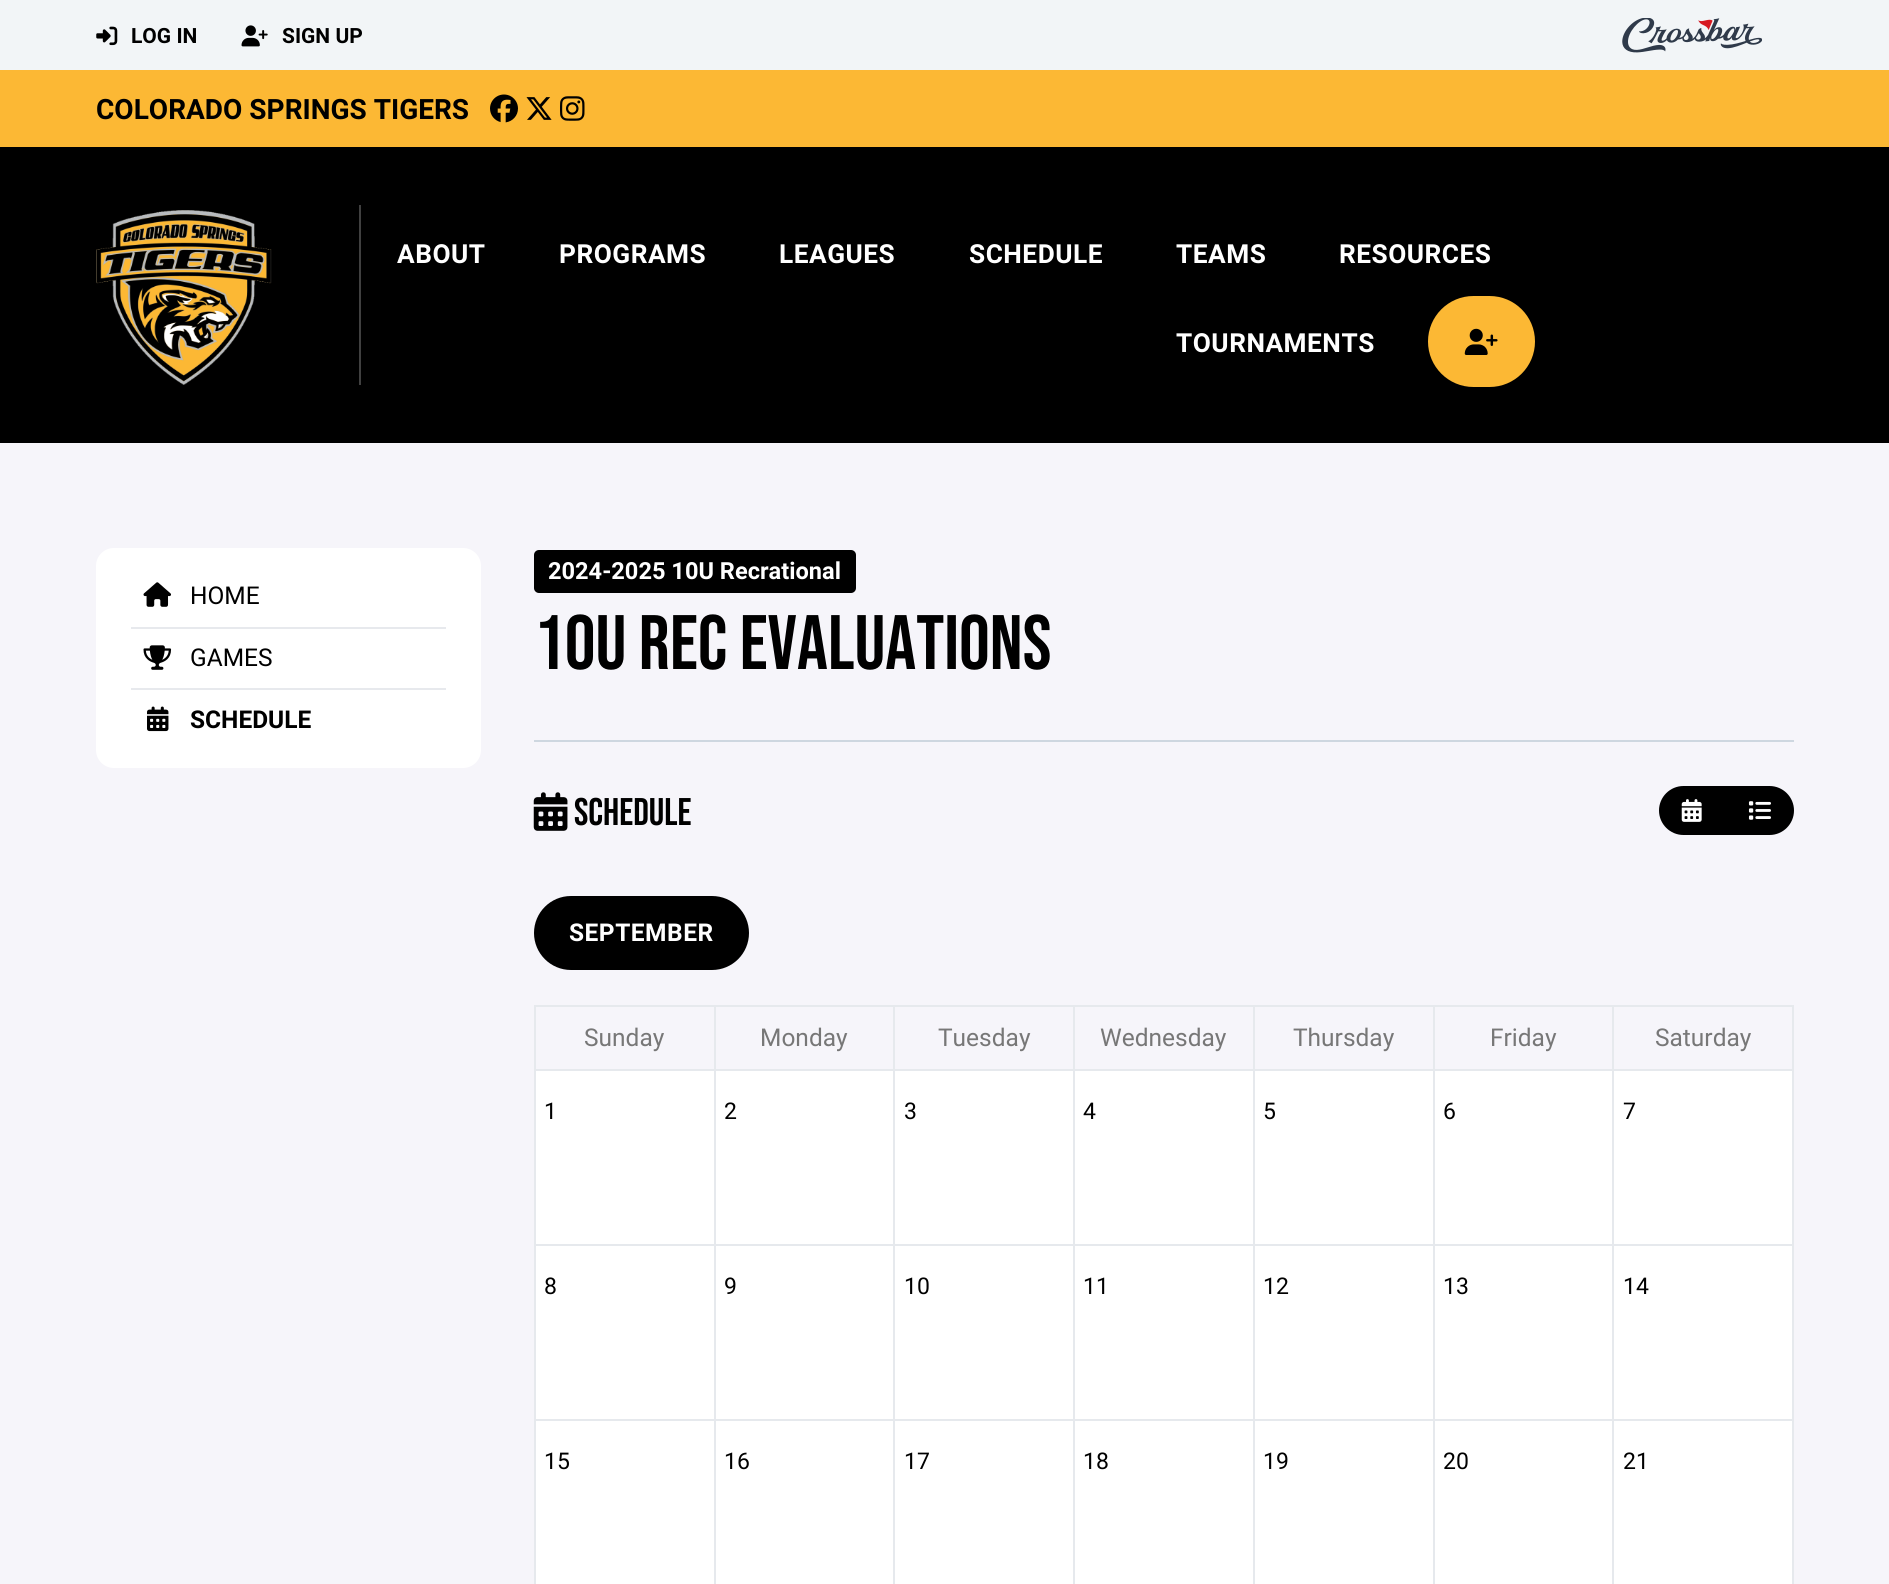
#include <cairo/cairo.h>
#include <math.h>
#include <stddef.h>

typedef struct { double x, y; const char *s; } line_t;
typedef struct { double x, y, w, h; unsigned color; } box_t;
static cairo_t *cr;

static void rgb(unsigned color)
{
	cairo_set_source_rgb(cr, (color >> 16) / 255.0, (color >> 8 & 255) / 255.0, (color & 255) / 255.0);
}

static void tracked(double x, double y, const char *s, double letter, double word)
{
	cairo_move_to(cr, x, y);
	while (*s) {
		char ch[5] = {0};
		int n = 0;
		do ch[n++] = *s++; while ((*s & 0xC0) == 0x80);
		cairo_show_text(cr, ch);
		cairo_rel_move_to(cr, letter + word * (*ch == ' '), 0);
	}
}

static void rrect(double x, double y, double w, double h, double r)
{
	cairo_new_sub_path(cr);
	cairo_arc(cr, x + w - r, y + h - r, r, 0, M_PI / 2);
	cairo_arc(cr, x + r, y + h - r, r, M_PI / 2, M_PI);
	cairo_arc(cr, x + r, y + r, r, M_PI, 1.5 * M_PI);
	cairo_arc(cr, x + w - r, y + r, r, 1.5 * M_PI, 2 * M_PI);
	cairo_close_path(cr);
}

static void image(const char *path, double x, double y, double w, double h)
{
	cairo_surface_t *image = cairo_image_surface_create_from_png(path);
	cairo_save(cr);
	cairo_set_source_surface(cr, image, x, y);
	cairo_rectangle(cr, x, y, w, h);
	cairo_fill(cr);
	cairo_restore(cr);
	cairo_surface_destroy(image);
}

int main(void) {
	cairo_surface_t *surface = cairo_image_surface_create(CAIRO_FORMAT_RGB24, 1889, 1584);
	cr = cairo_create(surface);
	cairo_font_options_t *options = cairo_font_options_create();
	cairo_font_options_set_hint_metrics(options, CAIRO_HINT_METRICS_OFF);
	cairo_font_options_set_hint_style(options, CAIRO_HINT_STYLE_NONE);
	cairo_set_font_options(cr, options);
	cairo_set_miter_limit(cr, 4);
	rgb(0xf2f5f7);
	cairo_paint(cr);
	image("img/1.png", 96, 26, 22, 20);
	image("img/2.png", 241, 25, 27, 22);
	image("img/3.png", 1622, 18, 140, 35);
	rgb(0xfcb834);
	cairo_rectangle(cr, 0, 70, 1889, 77);
	cairo_fill(cr);
	image("img/4.png", 490, 94, 28, 29);
	image("img/5.png", 526, 97, 26, 23);
	image("img/6.png", 560, 96, 25, 25);
	rgb(0x000000);
	cairo_rectangle(cr, 0, 147, 1889, 296);
	cairo_fill(cr);
	rgb(0x404040);
	cairo_rectangle(cr, 359, 205, 2, 180);
	cairo_fill(cr);
	image("img/7.png", 96, 210, 176, 175);
	rgb(0xfcb834);
	rrect(1428, 296, 107, 91, 45.5);
	cairo_fill(cr);
	image("img/8.png", 1464, 328, 34, 27);
	rgb(0xf6f5fa);
	cairo_rectangle(cr, 0, 443, 1889, 1141);
	cairo_fill(cr);
	rgb(0xffffff);
	rrect(96, 548, 385, 220, 18);
	cairo_fill(cr);
	image("img/9.png", 143, 582, 28, 25);
	rgb(0xe7e9ed);
	cairo_rectangle(cr, 131, 627, 315, 2);
	cairo_fill(cr);
	image("img/10.png", 143, 645, 29, 25);
	cairo_rectangle(cr, 131, 688, 315, 2);
	cairo_fill(cr);
	image("img/11.png", 147, 706, 22, 26);
	rgb(0x000000);
	rrect(534, 550, 322, 43, 5);
	cairo_fill(cr);
	rgb(0xced7e0);
	cairo_rectangle(cr, 534, 740, 1260, 2);
	cairo_fill(cr);
	image("img/12.png", 533, 792, 35, 39);
	rgb(0x000000);
	cairo_new_path(cr);
	cairo_move_to(cr, 1683.5, 786);
	cairo_line_to(cr, 1726, 786);
	cairo_line_to(cr, 1726, 835);
	cairo_line_to(cr, 1683.5, 835);
	cairo_curve_to(cr, 1670, 835, 1659, 824, 1659, 810.5);
	cairo_curve_to(cr, 1659, 797, 1670, 786, 1683.5, 786);
	cairo_close_path(cr);
	cairo_fill(cr);
	image("img/13.png", 1681, 799, 21, 23);
	cairo_new_path(cr);
	cairo_move_to(cr, 1726, 786);
	cairo_line_to(cr, 1769.5, 786);
	cairo_curve_to(cr, 1783, 786, 1794, 797, 1794, 810.5);
	cairo_curve_to(cr, 1794, 824, 1783, 835, 1769.5, 835);
	cairo_line_to(cr, 1726, 835);
	cairo_close_path(cr);
	cairo_fill(cr);
	image("img/14.png", 1748, 801, 23, 19);
	rrect(534, 896, 215, 74, 37);
	cairo_fill(cr);
	{
		static const box_t items[] = {
			{536, 1071, 1256, 513, 0xffffff},
			{534, 1005, 1260, 2, 0xe6e9ed},
			{1792, 1005, 2, 579, 0xe6e9ed},
			{1612, 1069, 182, 2, 0xe6e9ed},
			{1612, 1244, 182, 2, 0xe6e9ed},
			{1612, 1419, 182, 2, 0xe6e9ed},
			{1612, 1419, 2, 165, 0xe6e9ed},
			{1433, 1419, 181, 2, 0xe6e9ed},
			{1612, 1244, 2, 177, 0xe6e9ed},
			{1433, 1244, 181, 2, 0xe6e9ed},
			{1612, 1069, 2, 177, 0xe6e9ed},
			{1433, 1069, 181, 2, 0xe6e9ed},
			{1433, 1419, 2, 165, 0xe6e9ed},
			{1253, 1419, 182, 2, 0xe6e9ed},
			{1433, 1244, 2, 177, 0xe6e9ed},
			{1253, 1244, 182, 2, 0xe6e9ed},
			{1433, 1069, 2, 177, 0xe6e9ed},
			{1253, 1069, 182, 2, 0xe6e9ed},
			{1253, 1419, 2, 165, 0xe6e9ed},
			{1073, 1419, 182, 2, 0xe6e9ed},
			{1253, 1244, 2, 177, 0xe6e9ed},
			{1073, 1244, 182, 2, 0xe6e9ed},
			{1253, 1069, 2, 177, 0xe6e9ed},
			{1073, 1069, 182, 2, 0xe6e9ed},
			{1073, 1419, 2, 165, 0xe6e9ed},
			{893, 1419, 182, 2, 0xe6e9ed},
			{1073, 1244, 2, 177, 0xe6e9ed},
			{893, 1244, 182, 2, 0xe6e9ed},
			{1073, 1069, 2, 177, 0xe6e9ed},
			{893, 1069, 182, 2, 0xe6e9ed},
			{893, 1419, 2, 165, 0xe6e9ed},
			{714, 1419, 180, 2, 0xe6e9ed},
			{893, 1244, 2, 177, 0xe6e9ed},
			{714, 1244, 180, 2, 0xe6e9ed},
			{893, 1069, 2, 177, 0xe6e9ed},
			{714, 1069, 180, 2, 0xe6e9ed},
			{714, 1419, 2, 165, 0xe6e9ed},
			{534, 1419, 182, 2, 0xe6e9ed},
			{714, 1244, 2, 177, 0xe6e9ed},
			{534, 1244, 182, 2, 0xe6e9ed},
			{714, 1069, 2, 177, 0xe6e9ed},
			{534, 1069, 182, 2, 0xe6e9ed},
			{714, 1005, 2, 66, 0xe6e9ed},
			{893, 1005, 2, 66, 0xe6e9ed},
			{1073, 1005, 2, 66, 0xe6e9ed},
			{1253, 1005, 2, 66, 0xe6e9ed},
			{1433, 1005, 2, 66, 0xe6e9ed},
			{1612, 1005, 2, 66, 0xe6e9ed},
			{534, 1419, 2, 165, 0xe6e9ed},
			{534, 1244, 2, 177, 0xe6e9ed},
			{534, 1005, 2, 241, 0xe6e9ed},
		};
		for (size_t i = 0; i < sizeof items / sizeof *items; i++) {
			rgb(items[i].color);
			cairo_rectangle(cr, items[i].x, items[i].y, items[i].w, items[i].h);
			cairo_fill(cr);
		}
	}
	cairo_select_font_face(cr, "Roboto", CAIRO_FONT_SLANT_NORMAL, CAIRO_FONT_WEIGHT_BOLD);
	cairo_set_font_size(cr, 21);
	rgb(0x000000);
	cairo_move_to(cr, 131, 43);
	cairo_show_text(cr, "LOG IN");
	cairo_move_to(cr, 282, 43);
	cairo_show_text(cr, "SIGN UP");
	cairo_set_font_size(cr, 28);
	cairo_move_to(cr, 96, 119);
	cairo_show_text(cr, "COLORADO SPRINGS TIGERS");
	cairo_set_font_size(cr, 26.25);
	rgb(0xffffff);
	{
		static const line_t items[] = {
			{397, 263, "ABOUT"},
			{559, 263, "PROGRAMS"},
			{779, 263, "LEAGUES"},
			{969, 263, "SCHEDULE"},
			{1176, 263, "TEAMS"},
			{1339, 263, "RESOURCES"},
			{1176, 352, "TOURNAMENTS"},
		};
		for (size_t i = 0; i < sizeof items / sizeof *items; i++) {
			tracked(items[i].x, items[i].y, items[i].s, 0.5, 0);
		}
	}
	cairo_select_font_face(cr, "Roboto", CAIRO_FONT_SLANT_NORMAL, CAIRO_FONT_WEIGHT_NORMAL);
	cairo_set_font_size(cr, 24.5);
	rgb(0x000000);
	cairo_move_to(cr, 190, 604);
	cairo_show_text(cr, "HOME");
	cairo_move_to(cr, 190, 666);
	cairo_show_text(cr, "GAMES");
	cairo_select_font_face(cr, "Roboto", CAIRO_FONT_SLANT_NORMAL, CAIRO_FONT_WEIGHT_BOLD);
	cairo_move_to(cr, 190, 728);
	cairo_show_text(cr, "SCHEDULE");
	cairo_set_font_size(cr, 23.6);
	rgb(0xffffff);
	cairo_move_to(cr, 548, 579);
	cairo_show_text(cr, "2024-2025 10U Recrational");
	cairo_select_font_face(cr, "Bebas Neue", CAIRO_FONT_SLANT_NORMAL, CAIRO_FONT_WEIGHT_NORMAL);
	cairo_set_font_size(cr, 77);
	rgb(0x000000);
	cairo_move_to(cr, 534, 669);
	cairo_show_text(cr, "10U REC EVALUATIONS");
	cairo_set_font_size(cr, 38.5);
	cairo_move_to(cr, 574, 825);
	cairo_show_text(cr, "SCHEDULE");
	cairo_select_font_face(cr, "Roboto", CAIRO_FONT_SLANT_NORMAL, CAIRO_FONT_WEIGHT_BOLD);
	cairo_set_font_size(cr, 24.5);
	rgb(0xffffff);
	tracked(569, 941, "SEPTEMBER", 0.5, 0);
	cairo_select_font_face(cr, "Roboto", CAIRO_FONT_SLANT_NORMAL, CAIRO_FONT_WEIGHT_NORMAL);
	rgb(0x777777);
	{
		static const line_t items[] = {
			{584, 1046, "Sunday"},
			{760, 1046, "Monday"},
			{938, 1046, "Tuesday"},
			{1100, 1046, "Wednesday"},
			{1293, 1046, "Thursday"},
			{1490, 1046, "Friday"},
			{1655, 1046, "Saturday"},
		};
		for (size_t i = 0; i < sizeof items / sizeof *items; i++) {
			cairo_move_to(cr, items[i].x, items[i].y);
			cairo_show_text(cr, items[i].s);
		}
	}
	cairo_set_font_size(cr, 23);
	rgb(0x000000);
	{
		static const line_t items[] = {
			{544, 1119, "1"},
			{724, 1119, "2"},
			{904, 1119, "3"},
			{1083, 1119, "4"},
			{1263, 1119, "5"},
			{1443, 1119, "6"},
			{1623, 1119, "7"},
			{544, 1294, "8"},
			{724, 1294, "9"},
			{904, 1294, "10"},
			{1083, 1294, "11"},
			{1263, 1294, "12"},
			{1443, 1294, "13"},
			{1623, 1294, "14"},
			{544, 1469, "15"},
			{724, 1469, "16"},
			{904, 1469, "17"},
			{1083, 1469, "18"},
			{1263, 1469, "19"},
			{1443, 1469, "20"},
			{1623, 1469, "21"},
		};
		for (size_t i = 0; i < sizeof items / sizeof *items; i++) {
			cairo_move_to(cr, items[i].x, items[i].y);
			cairo_show_text(cr, items[i].s);
		}
	}
	cairo_surface_write_to_png(surface, "page.png");
	cairo_font_options_destroy(options);
	cairo_destroy(cr);
	cairo_surface_destroy(surface);
	return 0;
}
